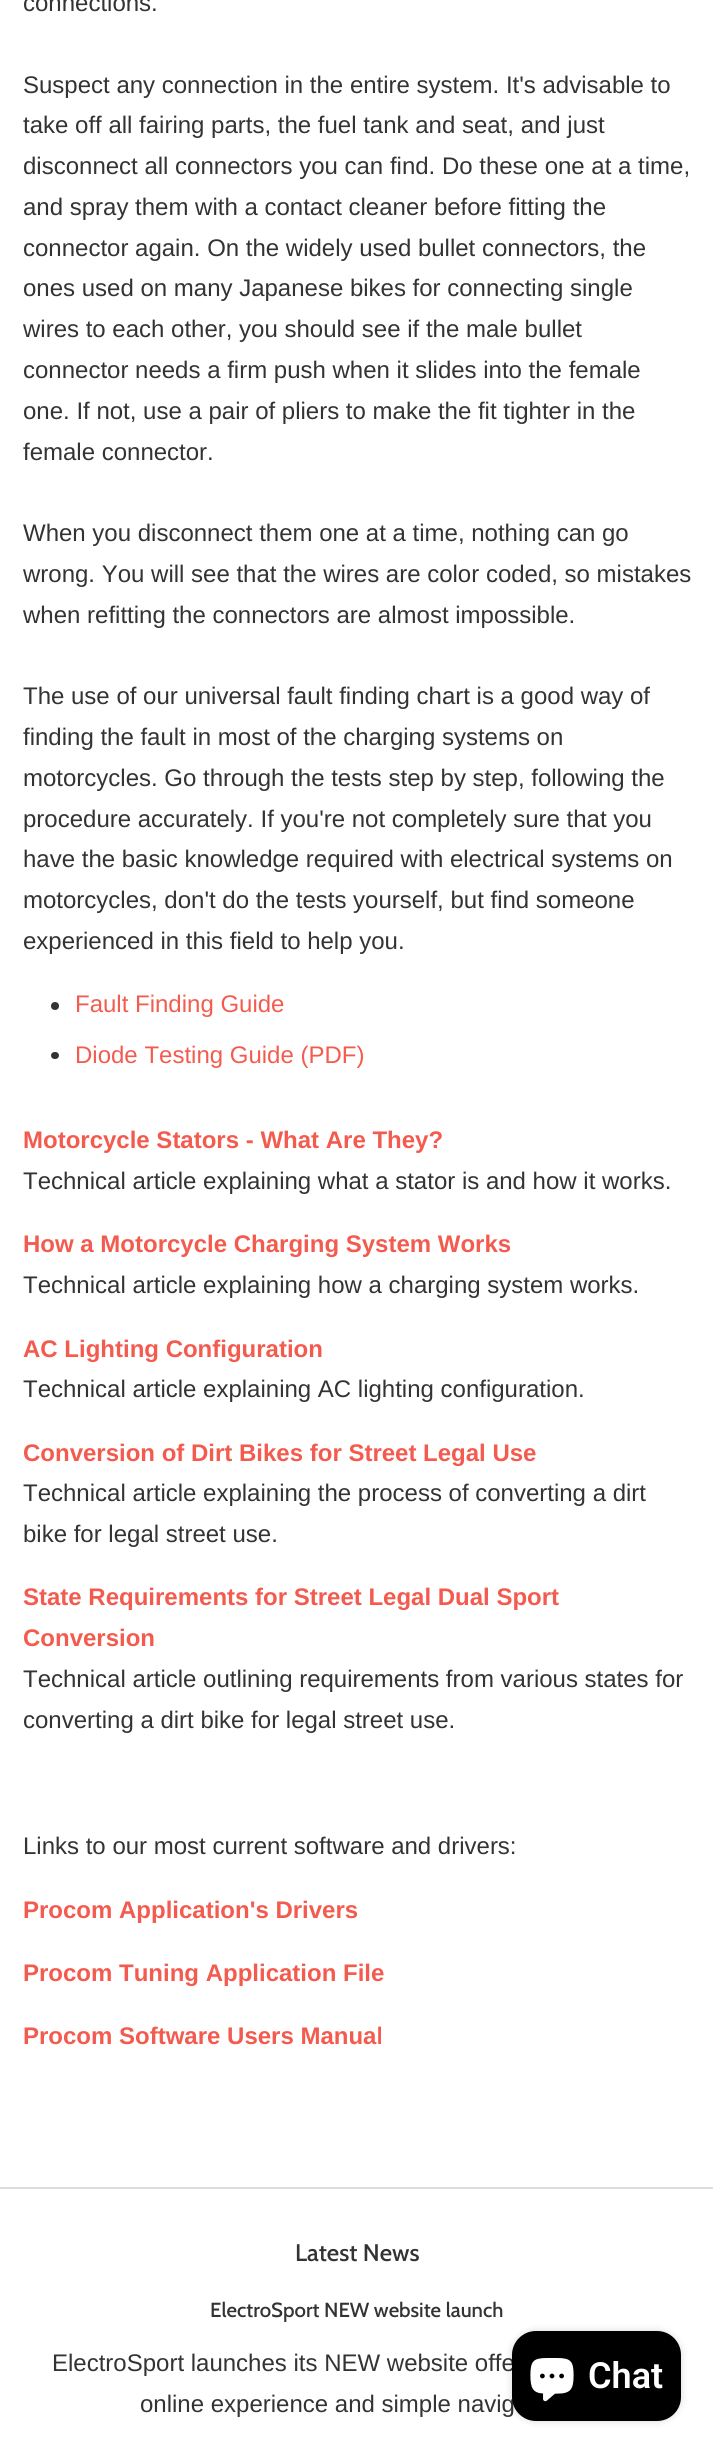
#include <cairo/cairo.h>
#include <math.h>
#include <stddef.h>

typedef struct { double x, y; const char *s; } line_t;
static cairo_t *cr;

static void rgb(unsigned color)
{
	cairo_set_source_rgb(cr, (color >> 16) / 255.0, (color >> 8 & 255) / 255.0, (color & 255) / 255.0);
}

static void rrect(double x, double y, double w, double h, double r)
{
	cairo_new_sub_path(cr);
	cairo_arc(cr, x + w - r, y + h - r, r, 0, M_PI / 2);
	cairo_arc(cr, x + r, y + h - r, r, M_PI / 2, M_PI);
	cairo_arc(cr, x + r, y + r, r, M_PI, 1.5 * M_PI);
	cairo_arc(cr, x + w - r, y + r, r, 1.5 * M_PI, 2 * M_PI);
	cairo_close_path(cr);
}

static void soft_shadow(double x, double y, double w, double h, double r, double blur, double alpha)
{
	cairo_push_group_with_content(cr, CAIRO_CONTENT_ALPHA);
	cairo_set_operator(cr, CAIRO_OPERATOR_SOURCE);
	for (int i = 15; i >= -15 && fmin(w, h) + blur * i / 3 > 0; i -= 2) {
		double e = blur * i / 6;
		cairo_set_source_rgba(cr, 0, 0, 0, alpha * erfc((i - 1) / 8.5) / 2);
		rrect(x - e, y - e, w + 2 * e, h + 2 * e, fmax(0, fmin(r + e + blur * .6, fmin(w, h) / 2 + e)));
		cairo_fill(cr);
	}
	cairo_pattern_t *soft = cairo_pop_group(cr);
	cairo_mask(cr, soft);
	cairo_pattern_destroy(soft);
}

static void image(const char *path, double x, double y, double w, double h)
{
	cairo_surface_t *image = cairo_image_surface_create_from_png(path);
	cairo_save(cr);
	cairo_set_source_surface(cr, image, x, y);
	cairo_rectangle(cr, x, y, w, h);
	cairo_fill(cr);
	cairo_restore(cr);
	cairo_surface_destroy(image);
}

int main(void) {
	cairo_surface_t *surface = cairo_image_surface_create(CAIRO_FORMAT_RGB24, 713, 2452);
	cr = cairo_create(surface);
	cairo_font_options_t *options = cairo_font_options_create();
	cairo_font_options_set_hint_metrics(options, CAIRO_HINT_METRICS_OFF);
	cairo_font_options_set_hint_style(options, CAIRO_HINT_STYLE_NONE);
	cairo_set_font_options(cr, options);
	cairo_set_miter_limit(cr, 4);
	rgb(0xffffff);
	cairo_paint(cr);
	rgb(0x333333);
	cairo_arc(cr, 55, 1006, 4, 0, 2 * M_PI);
	cairo_fill(cr);
	rrect(51, 1052, 8, 7, 3.5);
	cairo_fill(cr);
	rgb(0xdddddd);
	cairo_rectangle(cr, 0, 2187, 713, 2);
	cairo_fill(cr);
	rgb(0x000000);
	soft_shadow(512, 2331, 169, 90, 24, 4, 0.15);
	cairo_select_font_face(cr, "Liberation Sans", CAIRO_FONT_SLANT_NORMAL, CAIRO_FONT_WEIGHT_NORMAL);
	cairo_set_font_size(cr, 24);
	rgb(0x333333);
	{
		static const line_t items[] = {
			{23, 11, "connections."},
			{23, 93, "Suspect any connection in the entire system. It's advisable to"},
			{23, 133, "take off all fairing parts, the fuel tank and seat, and just"},
			{23, 174, "disconnect all connectors you can find. Do these one at a time,"},
			{23, 215, "and spray them with a contact cleaner before fitting the"},
			{23, 256, "connector again. On the widely used bullet connectors, the"},
			{23, 296, "ones used on many Japanese bikes for connecting single"},
			{23, 337, "wires to each other, you should see if the male bullet"},
			{23, 378, "connector needs a firm push when it slides into the female"},
			{23, 419, "one. If not, use a pair of pliers to make the fit tighter in the"},
			{23, 460, "female connector."},
			{23, 541, "When you disconnect them one at a time, nothing can go"},
			{23, 582, "wrong. You will see that the wires are color coded, so mistakes"},
			{23, 623, "when refitting the connectors are almost impossible."},
			{23, 704, "The use of our universal fault finding chart is a good way of"},
			{23, 745, "finding the fault in most of the charging systems on"},
			{23, 786, "motorcycles. Go through the tests step by step, following the"},
			{23, 827, "procedure accurately. If you're not completely sure that you"},
			{23, 867, "have the basic knowledge required with electrical systems on"},
			{23, 908, "motorcycles, don't do the tests yourself, but find someone"},
			{23, 949, "experienced in this field to help you."},
		};
		for (size_t i = 0; i < sizeof items / sizeof *items; i++) {
			cairo_move_to(cr, items[i].x, items[i].y);
			cairo_show_text(cr, items[i].s);
		}
	}
	rgb(0xf45b4f);
	cairo_move_to(cr, 75, 1012);
	cairo_show_text(cr, "Fault Finding Guide");
	cairo_move_to(cr, 75, 1063);
	cairo_show_text(cr, "Diode Testing Guide (PDF)");
	cairo_select_font_face(cr, "Liberation Sans", CAIRO_FONT_SLANT_NORMAL, CAIRO_FONT_WEIGHT_BOLD);
	cairo_move_to(cr, 23, 1148);
	cairo_show_text(cr, "Motorcycle Stators - What Are They?");
	cairo_select_font_face(cr, "Liberation Sans", CAIRO_FONT_SLANT_NORMAL, CAIRO_FONT_WEIGHT_NORMAL);
	rgb(0x333333);
	cairo_move_to(cr, 23, 1189);
	cairo_show_text(cr, "Technical article explaining what a stator is and how it works.");
	cairo_select_font_face(cr, "Liberation Sans", CAIRO_FONT_SLANT_NORMAL, CAIRO_FONT_WEIGHT_BOLD);
	rgb(0xf45b4f);
	cairo_move_to(cr, 23, 1252);
	cairo_show_text(cr, "How a Motorcycle Charging System Works");
	cairo_select_font_face(cr, "Liberation Sans", CAIRO_FONT_SLANT_NORMAL, CAIRO_FONT_WEIGHT_NORMAL);
	rgb(0x333333);
	cairo_move_to(cr, 23, 1293);
	cairo_show_text(cr, "Technical article explaining how a charging system works.");
	cairo_select_font_face(cr, "Liberation Sans", CAIRO_FONT_SLANT_NORMAL, CAIRO_FONT_WEIGHT_BOLD);
	rgb(0xf45b4f);
	cairo_move_to(cr, 23, 1357);
	cairo_show_text(cr, "AC Lighting Configuration");
	cairo_select_font_face(cr, "Liberation Sans", CAIRO_FONT_SLANT_NORMAL, CAIRO_FONT_WEIGHT_NORMAL);
	rgb(0x333333);
	cairo_move_to(cr, 23, 1397);
	cairo_show_text(cr, "Technical article explaining AC lighting configuration.");
	cairo_select_font_face(cr, "Liberation Sans", CAIRO_FONT_SLANT_NORMAL, CAIRO_FONT_WEIGHT_BOLD);
	rgb(0xf45b4f);
	cairo_move_to(cr, 23, 1461);
	cairo_show_text(cr, "Conversion of Dirt Bikes for Street Legal Use");
	cairo_select_font_face(cr, "Liberation Sans", CAIRO_FONT_SLANT_NORMAL, CAIRO_FONT_WEIGHT_NORMAL);
	rgb(0x333333);
	cairo_move_to(cr, 23, 1501);
	cairo_show_text(cr, "Technical article explaining the process of converting a dirt");
	cairo_move_to(cr, 23, 1542);
	cairo_show_text(cr, "bike for legal street use.");
	cairo_select_font_face(cr, "Liberation Sans", CAIRO_FONT_SLANT_NORMAL, CAIRO_FONT_WEIGHT_BOLD);
	rgb(0xf45b4f);
	cairo_move_to(cr, 23, 1605);
	cairo_show_text(cr, "State Requirements for Street Legal Dual Sport");
	cairo_move_to(cr, 23, 1646);
	cairo_show_text(cr, "Conversion");
	cairo_select_font_face(cr, "Liberation Sans", CAIRO_FONT_SLANT_NORMAL, CAIRO_FONT_WEIGHT_NORMAL);
	rgb(0x333333);
	{
		static const line_t items[] = {
			{23, 1687, "Technical article outlining requirements from various states for"},
			{23, 1728, "converting a dirt bike for legal street use."},
			{23, 1854, "Links to our most current software and drivers:"},
		};
		for (size_t i = 0; i < sizeof items / sizeof *items; i++) {
			cairo_move_to(cr, items[i].x, items[i].y);
			cairo_show_text(cr, items[i].s);
		}
	}
	cairo_select_font_face(cr, "Liberation Sans", CAIRO_FONT_SLANT_NORMAL, CAIRO_FONT_WEIGHT_BOLD);
	rgb(0xf45b4f);
	{
		static const line_t items[] = {
			{23, 1918, "Procom Application's Drivers"},
			{23, 1981, "Procom Tuning Application File"},
			{23, 2044, "Procom Software Users Manual"},
		};
		for (size_t i = 0; i < sizeof items / sizeof *items; i++) {
			cairo_move_to(cr, items[i].x, items[i].y);
			cairo_show_text(cr, items[i].s);
		}
	}
	cairo_select_font_face(cr, "Cabin Medium", CAIRO_FONT_SLANT_NORMAL, CAIRO_FONT_WEIGHT_NORMAL);
	rgb(0x333333);
	cairo_move_to(cr, 295, 2261);
	cairo_show_text(cr, "Latest News");
	cairo_set_font_size(cr, 20.4);
	cairo_move_to(cr, 210, 2317);
	cairo_show_text(cr, "ElectroSport NEW website launch");
	cairo_select_font_face(cr, "Liberation Sans", CAIRO_FONT_SLANT_NORMAL, CAIRO_FONT_WEIGHT_NORMAL);
	cairo_set_font_size(cr, 24);
	cairo_move_to(cr, 52, 2371);
	cairo_show_text(cr, "ElectroSport launches its NEW website offe");
	cairo_move_to(cr, 140, 2412);
	cairo_show_text(cr, "online experience and simple navig");
	rgb(0x000000);
	rrect(512, 2331, 169, 90, 24);
	cairo_fill(cr);
	image("img/1.png", 530, 2358, 44, 44);
	cairo_select_font_face(cr, "Roboto SemiBold", CAIRO_FONT_SLANT_NORMAL, CAIRO_FONT_WEIGHT_NORMAL);
	cairo_set_font_size(cr, 36);
	rgb(0xffffff);
	cairo_move_to(cr, 588, 2388);
	cairo_show_text(cr, "Chat");
	cairo_surface_write_to_png(surface, "page.png");
	cairo_font_options_destroy(options);
	cairo_destroy(cr);
	cairo_surface_destroy(surface);
	return 0;
}
